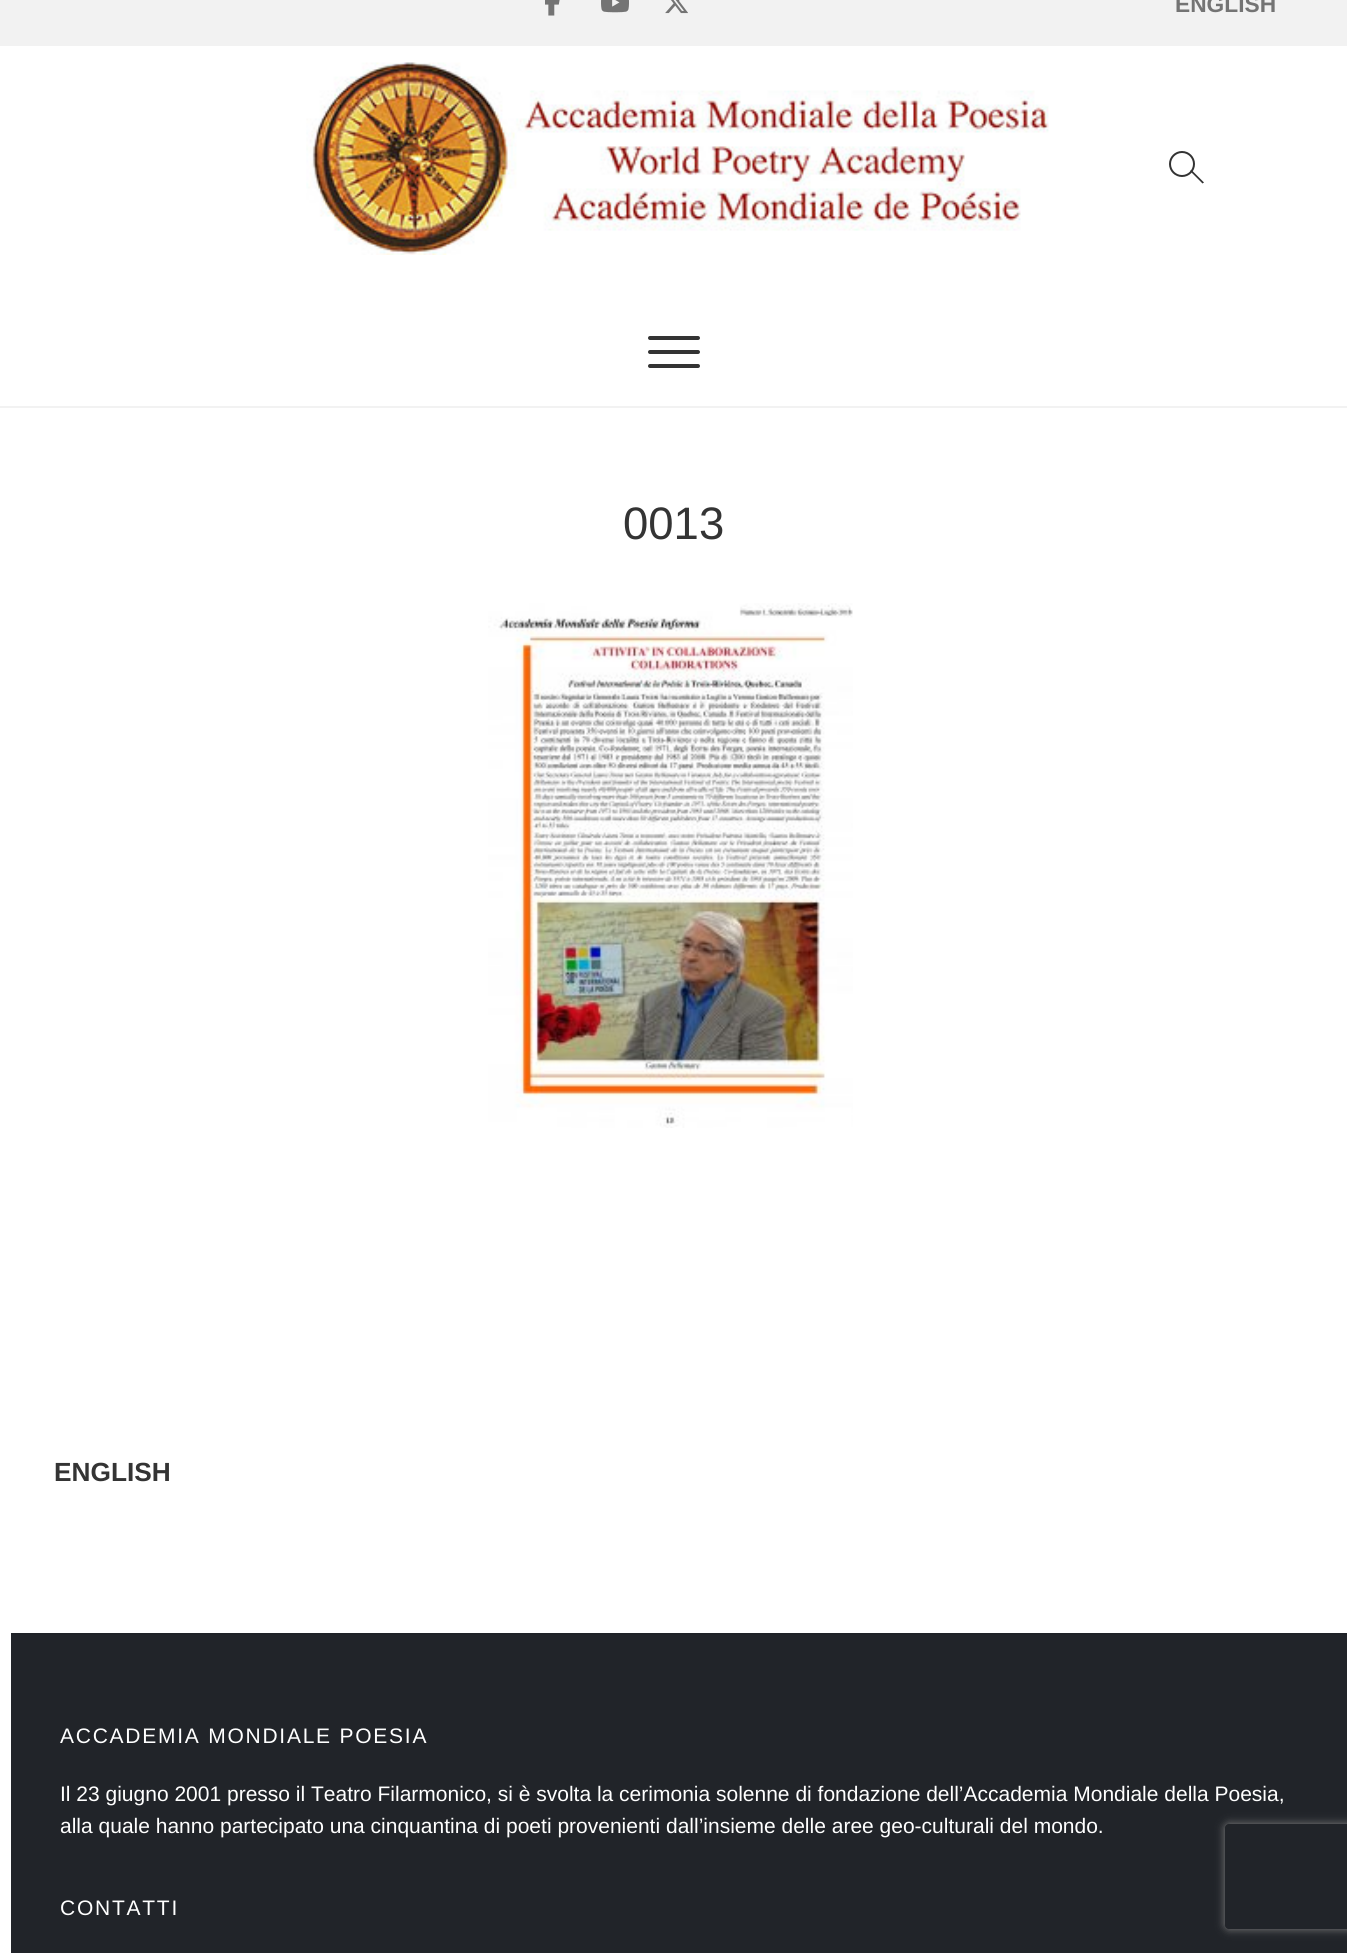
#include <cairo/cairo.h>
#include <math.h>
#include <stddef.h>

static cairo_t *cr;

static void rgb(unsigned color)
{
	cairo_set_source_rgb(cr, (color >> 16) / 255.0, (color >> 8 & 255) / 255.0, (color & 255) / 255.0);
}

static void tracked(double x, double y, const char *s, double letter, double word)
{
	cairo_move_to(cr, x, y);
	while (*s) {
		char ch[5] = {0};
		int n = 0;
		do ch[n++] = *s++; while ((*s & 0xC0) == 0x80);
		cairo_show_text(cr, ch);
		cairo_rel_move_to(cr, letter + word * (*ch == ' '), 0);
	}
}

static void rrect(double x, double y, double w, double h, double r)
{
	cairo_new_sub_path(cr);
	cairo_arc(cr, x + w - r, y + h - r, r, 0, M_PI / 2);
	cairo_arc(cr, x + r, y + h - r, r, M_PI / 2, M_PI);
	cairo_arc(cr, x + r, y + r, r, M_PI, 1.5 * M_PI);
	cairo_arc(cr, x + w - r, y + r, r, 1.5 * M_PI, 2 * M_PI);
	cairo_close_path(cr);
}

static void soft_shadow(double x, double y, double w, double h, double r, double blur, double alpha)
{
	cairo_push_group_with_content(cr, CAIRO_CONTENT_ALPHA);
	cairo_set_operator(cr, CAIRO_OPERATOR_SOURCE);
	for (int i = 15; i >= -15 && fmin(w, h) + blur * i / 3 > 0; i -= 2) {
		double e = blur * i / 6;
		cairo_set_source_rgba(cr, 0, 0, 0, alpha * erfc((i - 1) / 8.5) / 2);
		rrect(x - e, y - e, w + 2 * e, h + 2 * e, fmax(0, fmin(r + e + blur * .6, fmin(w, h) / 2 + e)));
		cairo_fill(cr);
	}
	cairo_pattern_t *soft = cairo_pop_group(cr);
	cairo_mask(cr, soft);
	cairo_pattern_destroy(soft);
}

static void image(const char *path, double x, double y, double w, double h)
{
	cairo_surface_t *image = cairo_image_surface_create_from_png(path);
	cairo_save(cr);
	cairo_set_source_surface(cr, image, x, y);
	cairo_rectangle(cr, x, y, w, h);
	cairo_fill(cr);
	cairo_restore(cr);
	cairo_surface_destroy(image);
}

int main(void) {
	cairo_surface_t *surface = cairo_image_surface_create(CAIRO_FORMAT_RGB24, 1347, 1953);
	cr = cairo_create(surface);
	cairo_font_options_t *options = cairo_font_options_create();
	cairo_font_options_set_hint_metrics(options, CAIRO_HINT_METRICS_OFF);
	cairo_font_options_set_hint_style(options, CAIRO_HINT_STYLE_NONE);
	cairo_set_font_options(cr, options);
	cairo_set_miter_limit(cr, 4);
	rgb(0xffffff);
	cairo_paint(cr);
	rgb(0xf2f2f2);
	cairo_rectangle(cr, 0, 0, 1347, 46);
	cairo_fill(cr);
	image("img/1.png", 545, 0, 15, 16);
	image("img/2.png", 601, 0, 28, 13);
	image("img/3.png", 665, 0, 23, 14);
	cairo_rectangle(cr, 0, 406, 1347, 2);
	cairo_fill(cr);
	image("img/4.png", 306, 62, 743, 193);
	cairo_arc(cr, 1182, 164, 12, 0, 2 * M_PI);
	rgb(0x333333);
	cairo_stroke(cr);
	cairo_new_path(cr);
	cairo_move_to(cr, 1190, 171);
	cairo_line_to(cr, 1191.5, 170);
	cairo_line_to(cr, 1204, 182.5);
	cairo_line_to(cr, 1202.5, 183.5);
	cairo_close_path(cr);
	cairo_fill(cr);
	rrect(648, 350, 52, 4, 2);
	cairo_fill(cr);
	rrect(648, 336, 52, 4, 2);
	cairo_fill(cr);
	rrect(648, 364, 52, 4, 2);
	cairo_fill(cr);
	image("img/5.png", 488, 603, 365, 525);
	rgb(0x212429);
	cairo_rectangle(cr, 11, 1635, 1336, 318);
	cairo_fill(cr);
	rgb(0x1f2227);
	cairo_rectangle(cr, 11, 1633, 1336, 2);
	cairo_fill(cr);
	cairo_save(cr);
	cairo_set_fill_rule(cr, CAIRO_FILL_RULE_EVEN_ODD);
	cairo_new_path(cr);
	cairo_move_to(cr, 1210, 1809);
	cairo_line_to(cr, 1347, 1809);
	cairo_line_to(cr, 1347, 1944);
	cairo_line_to(cr, 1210, 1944);
	cairo_close_path(cr);
	cairo_move_to(cr, 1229, 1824);
	cairo_line_to(cr, 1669, 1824);
	cairo_curve_to(cr, 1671, 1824, 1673, 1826, 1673, 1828);
	cairo_line_to(cr, 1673, 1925);
	cairo_curve_to(cr, 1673, 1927, 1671, 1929, 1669, 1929);
	cairo_line_to(cr, 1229, 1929);
	cairo_curve_to(cr, 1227, 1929, 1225, 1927, 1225, 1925);
	cairo_line_to(cr, 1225, 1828);
	cairo_curve_to(cr, 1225, 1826, 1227, 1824, 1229, 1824);
	cairo_close_path(cr);
	cairo_clip(cr);
	rgb(0x808080);
	soft_shadow(1225, 1824, 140, 105, 4, 4.5, 1);
	cairo_restore(cr);
	cairo_select_font_face(cr, "Arimo", CAIRO_FONT_SLANT_NORMAL, CAIRO_FONT_WEIGHT_BOLD);
	cairo_set_font_size(cr, 22.75);
	rgb(0x747474);
	cairo_move_to(cr, 1175, 12);
	cairo_show_text(cr, "ENGLISH");
	cairo_select_font_face(cr, "Arimo", CAIRO_FONT_SLANT_NORMAL, CAIRO_FONT_WEIGHT_NORMAL);
	cairo_set_font_size(cr, 45.5);
	rgb(0x343434);
	cairo_move_to(cr, 623, 539);
	cairo_show_text(cr, "0013");
	cairo_select_font_face(cr, "Arimo", CAIRO_FONT_SLANT_NORMAL, CAIRO_FONT_WEIGHT_BOLD);
	cairo_set_font_size(cr, 26.25);
	cairo_move_to(cr, 54, 1481);
	cairo_show_text(cr, "ENGLISH");
	cairo_select_font_face(cr, "Arimo", CAIRO_FONT_SLANT_NORMAL, CAIRO_FONT_WEIGHT_NORMAL);
	cairo_set_font_size(cr, 21);
	rgb(0xffffff);
	tracked(60, 1743, "ACCADEMIA MONDIALE POESIA", 1.75, 0);
	cairo_move_to(cr, 60, 1801);
	cairo_show_text(cr, "Il 23 giugno 2001 presso il Teatro Filarmonico, si è svolta la cerimonia solenne di fondazione dell’Accademia Mondiale della Poesia,");
	cairo_move_to(cr, 60, 1833);
	cairo_show_text(cr, "alla quale hanno partecipato una cinquantina di poeti provenienti dall’insieme delle aree geo-culturali del mondo.");
	tracked(60, 1915, "CONTATTI", 1.75, 0);
	cairo_surface_write_to_png(surface, "page.png");
	cairo_font_options_destroy(options);
	cairo_destroy(cr);
	cairo_surface_destroy(surface);
	return 0;
}
